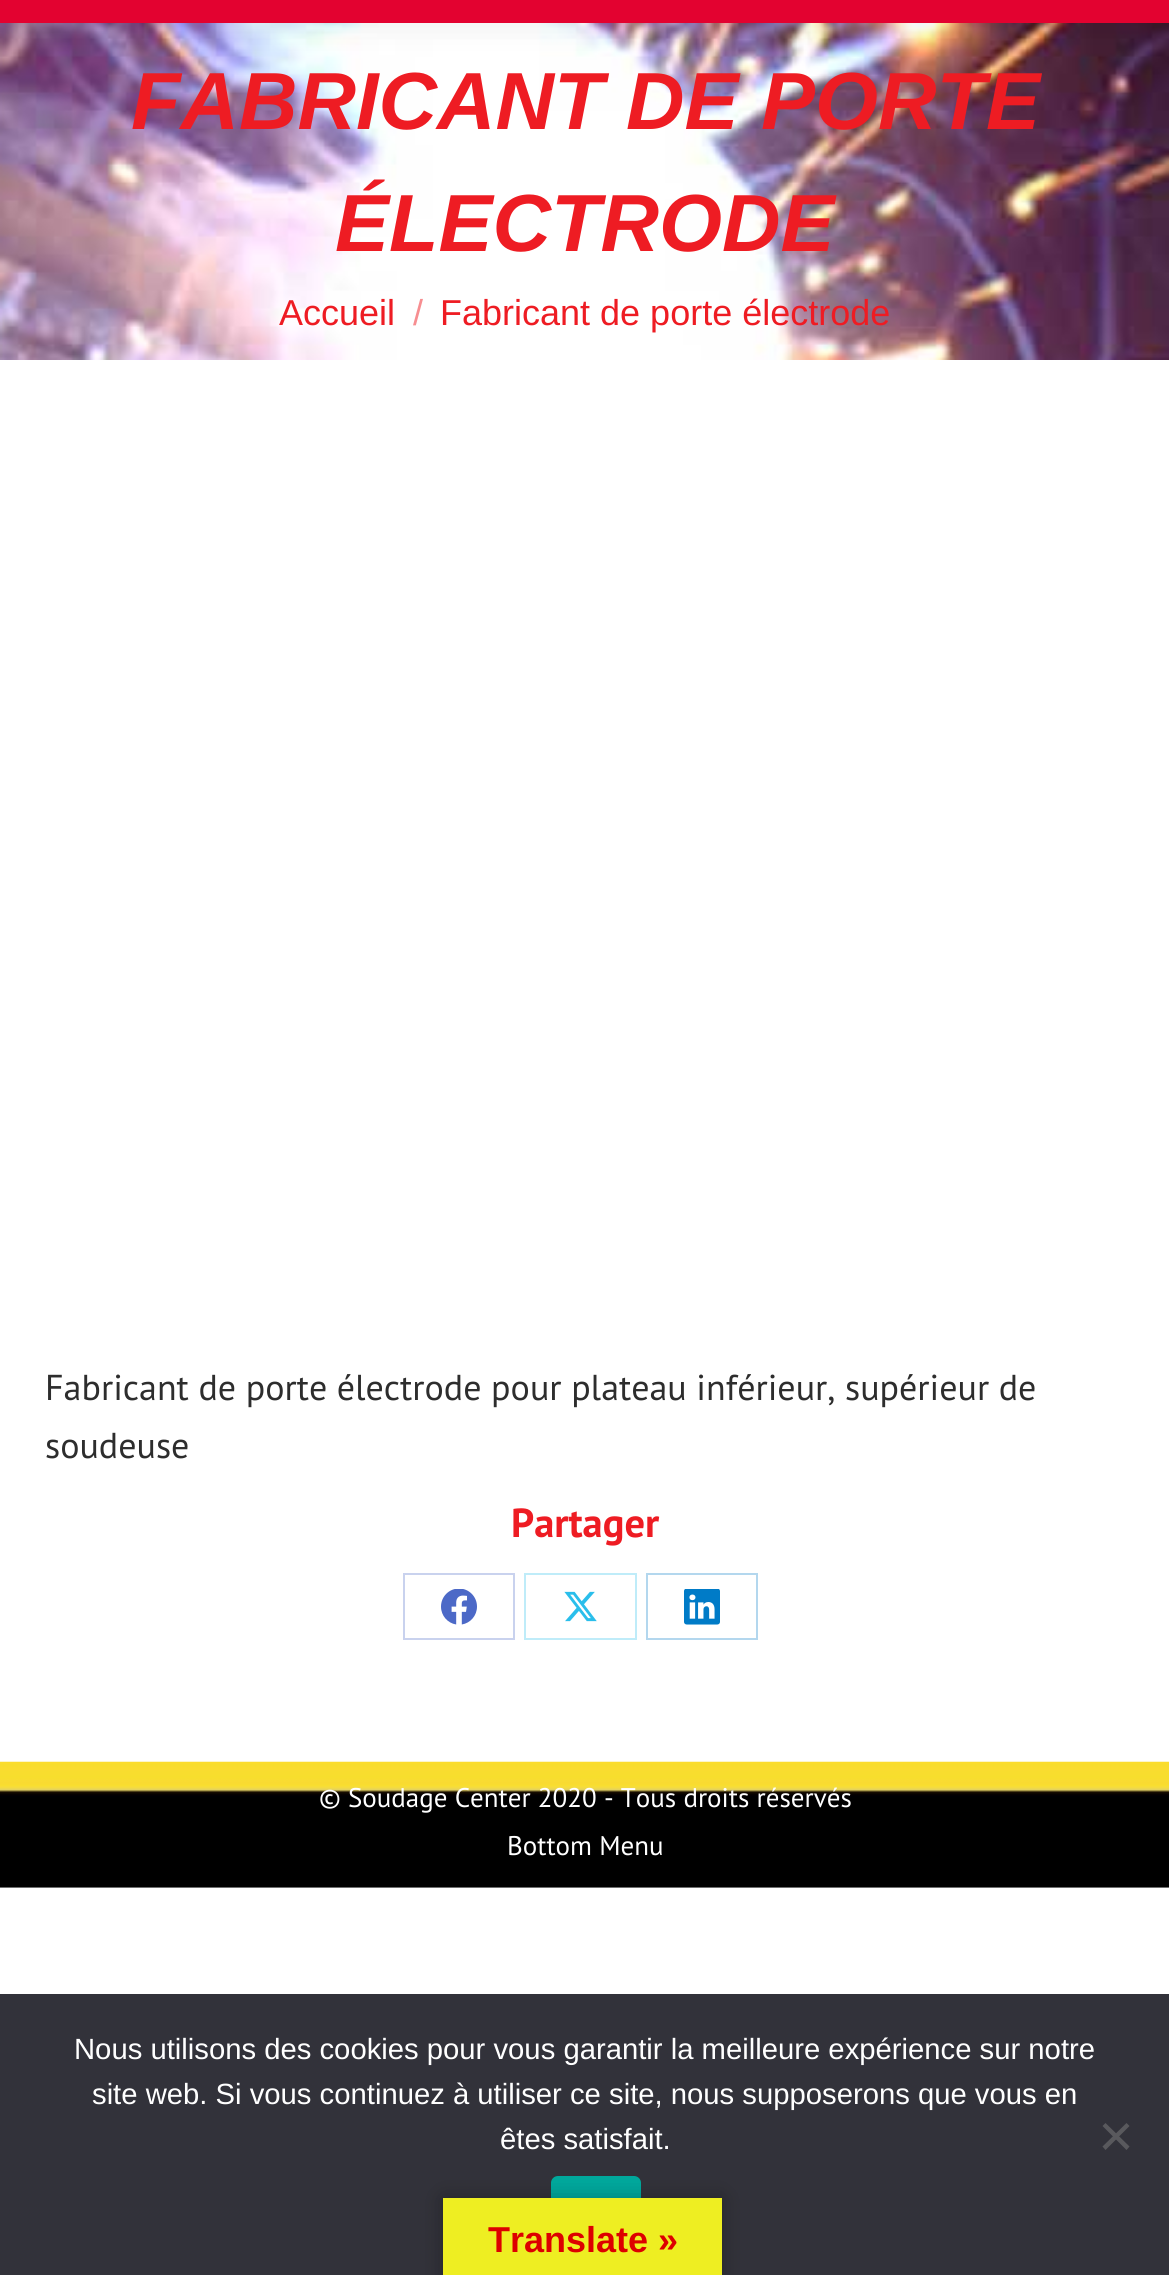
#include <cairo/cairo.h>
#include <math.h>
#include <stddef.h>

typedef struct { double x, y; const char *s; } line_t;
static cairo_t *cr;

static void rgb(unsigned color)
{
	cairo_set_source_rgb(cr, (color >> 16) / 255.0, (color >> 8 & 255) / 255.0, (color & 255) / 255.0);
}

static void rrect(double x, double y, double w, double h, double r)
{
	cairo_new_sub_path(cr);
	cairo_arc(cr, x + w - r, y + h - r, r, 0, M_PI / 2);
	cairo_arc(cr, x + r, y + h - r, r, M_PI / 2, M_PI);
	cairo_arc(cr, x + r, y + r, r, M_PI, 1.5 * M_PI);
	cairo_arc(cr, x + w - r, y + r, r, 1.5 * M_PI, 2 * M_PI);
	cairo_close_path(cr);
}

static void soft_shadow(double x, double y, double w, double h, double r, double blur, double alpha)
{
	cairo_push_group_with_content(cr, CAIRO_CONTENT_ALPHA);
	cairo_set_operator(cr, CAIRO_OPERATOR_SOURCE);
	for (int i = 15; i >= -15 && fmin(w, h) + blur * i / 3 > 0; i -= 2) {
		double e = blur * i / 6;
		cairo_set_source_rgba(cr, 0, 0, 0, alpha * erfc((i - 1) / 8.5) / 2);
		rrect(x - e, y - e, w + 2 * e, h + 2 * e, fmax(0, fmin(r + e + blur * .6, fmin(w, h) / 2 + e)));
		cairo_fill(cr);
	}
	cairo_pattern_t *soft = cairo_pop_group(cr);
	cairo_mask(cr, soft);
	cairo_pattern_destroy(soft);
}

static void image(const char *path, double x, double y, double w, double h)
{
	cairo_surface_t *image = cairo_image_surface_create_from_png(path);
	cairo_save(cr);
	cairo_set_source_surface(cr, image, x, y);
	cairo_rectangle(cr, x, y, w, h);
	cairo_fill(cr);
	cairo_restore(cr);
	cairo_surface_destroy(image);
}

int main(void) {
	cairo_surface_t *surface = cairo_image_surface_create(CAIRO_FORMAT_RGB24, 1169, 2275);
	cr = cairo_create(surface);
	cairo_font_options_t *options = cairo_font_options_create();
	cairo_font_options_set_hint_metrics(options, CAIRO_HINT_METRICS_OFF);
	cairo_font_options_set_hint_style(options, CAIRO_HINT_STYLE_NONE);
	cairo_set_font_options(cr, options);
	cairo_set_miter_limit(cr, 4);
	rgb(0xffffff);
	cairo_paint(cr);
	image("img/1.png", 0, 23, 1169, 337);
	rgb(0x000000);
	soft_shadow(-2, -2, 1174, 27, 0, 17, 0.07);
	rgb(0xe30230);
	cairo_rectangle(cr, 0, 0, 1169, 23);
	cairo_fill(cr);
	cairo_rectangle(cr, 404, 1574, 110, 65);
	rgb(0xc9d2ee);
	cairo_stroke(cr);
	image("img/2.png", 441, 1589, 36, 36);
	cairo_rectangle(cr, 525, 1574, 111, 65);
	rgb(0xbfecf9);
	cairo_stroke(cr);
	image("img/3.png", 564, 1591, 33, 31);
	cairo_rectangle(cr, 647, 1574, 110, 65);
	rgb(0xb3d7ee);
	cairo_stroke(cr);
	image("img/4.png", 684, 1589, 36, 36);
	image("img/5.png", 0, 1761, 1169, 127);
	rgb(0xfbdc2d);
	cairo_rectangle(cr, 0, 1762, 1169, 2);
	cairo_fill(cr);
	rgb(0x32323a);
	cairo_rectangle(cr, 0, 1994, 1169, 281);
	cairo_fill(cr);
	rgb(0x59595d);
	cairo_new_path(cr);
	cairo_move_to(cr, 1126.5, 2123);
	cairo_line_to(cr, 1129.5, 2126);
	cairo_line_to(cr, 1105.5, 2150);
	cairo_line_to(cr, 1102.5, 2146.5);
	cairo_close_path(cr);
	cairo_fill(cr);
	cairo_new_path(cr);
	cairo_move_to(cr, 1102.5, 2126);
	cairo_line_to(cr, 1105.5, 2123);
	cairo_line_to(cr, 1129.5, 2146.5);
	cairo_line_to(cr, 1126.5, 2150);
	cairo_close_path(cr);
	cairo_fill(cr);
	rgb(0x00a99d);
	rrect(551, 2176, 90, 67, 7);
	cairo_fill(cr);
	rgb(0x000000);
	soft_shadow(443, 2198, 279, 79, 0, 10, 0.3);
	rgb(0xeeee22);
	cairo_rectangle(cr, 443, 2198, 279, 77);
	cairo_fill(cr);
	cairo_select_font_face(cr, "Liberation Sans", CAIRO_FONT_SLANT_ITALIC, CAIRO_FONT_WEIGHT_BOLD);
	cairo_set_font_size(cr, 81);
	rgb(0xee1c23);
	cairo_move_to(cr, 131, 129);
	cairo_show_text(cr, "FABRICANT DE PORTE");
	cairo_move_to(cr, 335, 251);
	cairo_show_text(cr, "ÉLECTRODE");
	cairo_select_font_face(cr, "Liberation Sans", CAIRO_FONT_SLANT_NORMAL, CAIRO_FONT_WEIGHT_NORMAL);
	cairo_set_font_size(cr, 36);
	cairo_move_to(cr, 279, 325);
	cairo_show_text(cr, "Accueil");
	rgb(0xf78e91);
	cairo_move_to(cr, 413, 325);
	cairo_show_text(cr, "/");
	rgb(0xee1c23);
	cairo_move_to(cr, 440, 325);
	cairo_show_text(cr, "Fabricant de porte électrode");
	cairo_select_font_face(cr, "PT Sans", CAIRO_FONT_SLANT_NORMAL, CAIRO_FONT_WEIGHT_NORMAL);
	rgb(0x2d2d2d);
	cairo_move_to(cr, 45, 1400);
	cairo_show_text(cr, "Fabricant de porte électrode pour plateau inférieur, supérieur de");
	cairo_move_to(cr, 45, 1458);
	cairo_show_text(cr, "soudeuse");
	cairo_select_font_face(cr, "PT Sans", CAIRO_FONT_SLANT_NORMAL, CAIRO_FONT_WEIGHT_BOLD);
	cairo_set_font_size(cr, 40.5);
	rgb(0xee1c23);
	cairo_move_to(cr, 511, 1537);
	cairo_show_text(cr, "Partager");
	cairo_select_font_face(cr, "PT Sans", CAIRO_FONT_SLANT_NORMAL, CAIRO_FONT_WEIGHT_NORMAL);
	cairo_set_font_size(cr, 27);
	rgb(0xffffff);
	cairo_move_to(cr, 319, 1807);
	cairo_show_text(cr, "© Soudage Center 2020 - Tous droits réservés");
	cairo_move_to(cr, 507, 1855);
	cairo_show_text(cr, "Bottom Menu");
	cairo_select_font_face(cr, "Liberation Sans", CAIRO_FONT_SLANT_NORMAL, CAIRO_FONT_WEIGHT_NORMAL);
	cairo_set_font_size(cr, 29.25);
	{
		static const line_t items[] = {
			{74, 2059, "Nous utilisons des cookies pour vous garantir la meilleure expérience sur notre"},
			{92, 2104, "site web. Si vous continuez à utiliser ce site, nous supposerons que vous en"},
			{500, 2149, "êtes satisfait."},
		};
		for (size_t i = 0; i < sizeof items / sizeof *items; i++) {
			cairo_move_to(cr, items[i].x, items[i].y);
			cairo_show_text(cr, items[i].s);
		}
	}
	cairo_select_font_face(cr, "Liberation Sans", CAIRO_FONT_SLANT_NORMAL, CAIRO_FONT_WEIGHT_BOLD);
	cairo_set_font_size(cr, 36);
	rgb(0xdd0000);
	cairo_move_to(cr, 488, 2252);
	cairo_show_text(cr, "Translate »");
	cairo_surface_write_to_png(surface, "page.png");
	cairo_font_options_destroy(options);
	cairo_destroy(cr);
	cairo_surface_destroy(surface);
	return 0;
}
